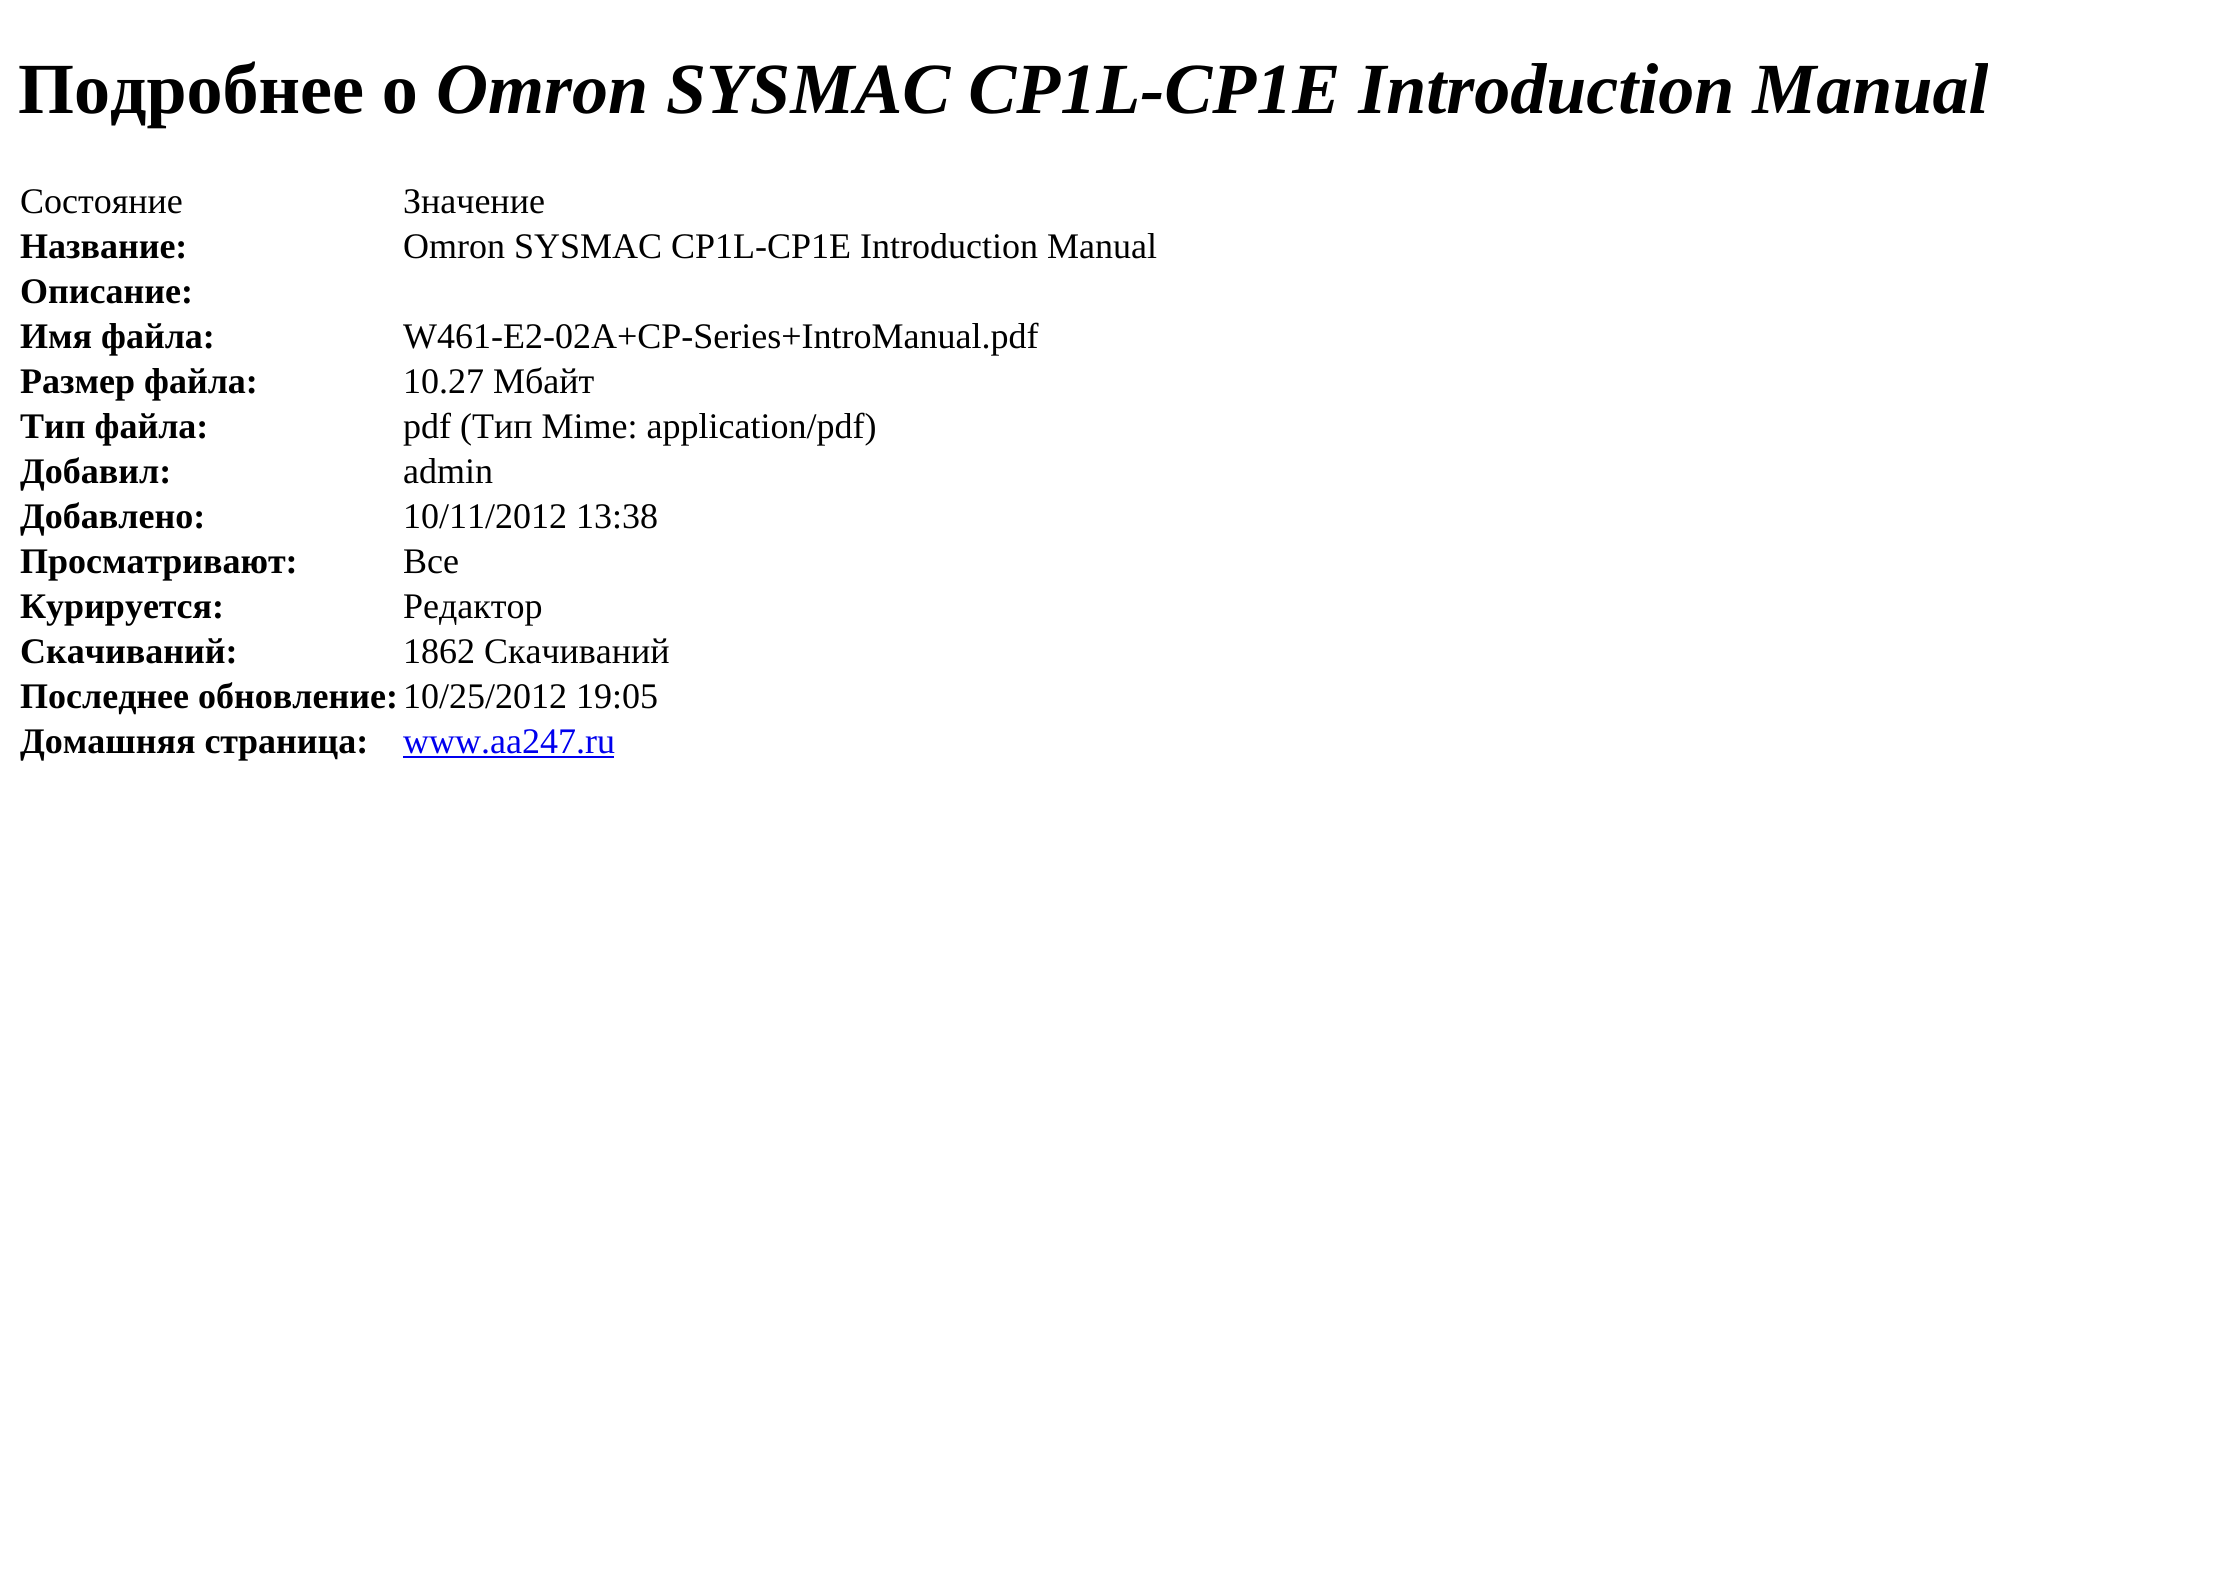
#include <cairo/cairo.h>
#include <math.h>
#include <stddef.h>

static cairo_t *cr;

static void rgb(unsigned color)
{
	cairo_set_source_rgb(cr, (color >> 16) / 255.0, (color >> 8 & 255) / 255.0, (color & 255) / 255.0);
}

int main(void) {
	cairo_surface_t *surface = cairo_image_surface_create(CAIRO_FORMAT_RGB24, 2213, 1569);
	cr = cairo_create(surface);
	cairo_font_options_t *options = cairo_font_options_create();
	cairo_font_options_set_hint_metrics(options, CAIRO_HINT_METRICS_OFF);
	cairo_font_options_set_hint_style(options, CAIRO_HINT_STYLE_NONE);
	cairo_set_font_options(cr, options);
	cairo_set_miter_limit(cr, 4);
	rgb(0xffffff);
	cairo_paint(cr);
	rgb(0x0000ee);
	cairo_rectangle(cr, 403, 756, 211, 2);
	cairo_fill(cr);
	cairo_select_font_face(cr, "Liberation Serif", CAIRO_FONT_SLANT_NORMAL, CAIRO_FONT_WEIGHT_BOLD);
	cairo_set_font_size(cr, 72);
	rgb(0x000000);
	cairo_move_to(cr, 18, 113);
	cairo_show_text(cr, "Подробнее о");
	cairo_select_font_face(cr, "Liberation Serif", CAIRO_FONT_SLANT_ITALIC, CAIRO_FONT_WEIGHT_BOLD);
	cairo_move_to(cr, 436, 113);
	cairo_show_text(cr, "Omron SYSMAC CP1L-CP1E Introduction Manual");
	cairo_select_font_face(cr, "Liberation Serif", CAIRO_FONT_SLANT_NORMAL, CAIRO_FONT_WEIGHT_NORMAL);
	cairo_set_font_size(cr, 36);
	cairo_move_to(cr, 20, 213);
	cairo_show_text(cr, "Состояние");
	cairo_move_to(cr, 403, 213);
	cairo_show_text(cr, "Значение");
	cairo_select_font_face(cr, "Liberation Serif", CAIRO_FONT_SLANT_NORMAL, CAIRO_FONT_WEIGHT_BOLD);
	cairo_move_to(cr, 20, 258);
	cairo_show_text(cr, "Название:");
	cairo_select_font_face(cr, "Liberation Serif", CAIRO_FONT_SLANT_NORMAL, CAIRO_FONT_WEIGHT_NORMAL);
	cairo_move_to(cr, 403, 258);
	cairo_show_text(cr, "Omron SYSMAC CP1L-CP1E Introduction Manual");
	cairo_select_font_face(cr, "Liberation Serif", CAIRO_FONT_SLANT_NORMAL, CAIRO_FONT_WEIGHT_BOLD);
	cairo_move_to(cr, 20, 303);
	cairo_show_text(cr, "Описание:");
	cairo_move_to(cr, 20, 348);
	cairo_show_text(cr, "Имя файла:");
	cairo_select_font_face(cr, "Liberation Serif", CAIRO_FONT_SLANT_NORMAL, CAIRO_FONT_WEIGHT_NORMAL);
	cairo_move_to(cr, 403, 348);
	cairo_show_text(cr, "W461-E2-02A+CP-Series+IntroManual.pdf");
	cairo_select_font_face(cr, "Liberation Serif", CAIRO_FONT_SLANT_NORMAL, CAIRO_FONT_WEIGHT_BOLD);
	cairo_move_to(cr, 20, 393);
	cairo_show_text(cr, "Размер файла:");
	cairo_select_font_face(cr, "Liberation Serif", CAIRO_FONT_SLANT_NORMAL, CAIRO_FONT_WEIGHT_NORMAL);
	cairo_move_to(cr, 403, 393);
	cairo_show_text(cr, "10.27 Мбайт");
	cairo_select_font_face(cr, "Liberation Serif", CAIRO_FONT_SLANT_NORMAL, CAIRO_FONT_WEIGHT_BOLD);
	cairo_move_to(cr, 20, 438);
	cairo_show_text(cr, "Тип файла:");
	cairo_select_font_face(cr, "Liberation Serif", CAIRO_FONT_SLANT_NORMAL, CAIRO_FONT_WEIGHT_NORMAL);
	cairo_move_to(cr, 403, 438);
	cairo_show_text(cr, "pdf (Тип Mime: application/pdf)");
	cairo_select_font_face(cr, "Liberation Serif", CAIRO_FONT_SLANT_NORMAL, CAIRO_FONT_WEIGHT_BOLD);
	cairo_move_to(cr, 20, 483);
	cairo_show_text(cr, "Добавил:");
	cairo_select_font_face(cr, "Liberation Serif", CAIRO_FONT_SLANT_NORMAL, CAIRO_FONT_WEIGHT_NORMAL);
	cairo_move_to(cr, 403, 483);
	cairo_show_text(cr, "admin");
	cairo_select_font_face(cr, "Liberation Serif", CAIRO_FONT_SLANT_NORMAL, CAIRO_FONT_WEIGHT_BOLD);
	cairo_move_to(cr, 20, 528);
	cairo_show_text(cr, "Добавлено:");
	cairo_select_font_face(cr, "Liberation Serif", CAIRO_FONT_SLANT_NORMAL, CAIRO_FONT_WEIGHT_NORMAL);
	cairo_move_to(cr, 403, 528);
	cairo_show_text(cr, "10/11/2012 13:38");
	cairo_select_font_face(cr, "Liberation Serif", CAIRO_FONT_SLANT_NORMAL, CAIRO_FONT_WEIGHT_BOLD);
	cairo_move_to(cr, 20, 573);
	cairo_show_text(cr, "Просматривают:");
	cairo_select_font_face(cr, "Liberation Serif", CAIRO_FONT_SLANT_NORMAL, CAIRO_FONT_WEIGHT_NORMAL);
	cairo_move_to(cr, 403, 573);
	cairo_show_text(cr, "Все");
	cairo_select_font_face(cr, "Liberation Serif", CAIRO_FONT_SLANT_NORMAL, CAIRO_FONT_WEIGHT_BOLD);
	cairo_move_to(cr, 20, 618);
	cairo_show_text(cr, "Курируется:");
	cairo_select_font_face(cr, "Liberation Serif", CAIRO_FONT_SLANT_NORMAL, CAIRO_FONT_WEIGHT_NORMAL);
	cairo_move_to(cr, 403, 618);
	cairo_show_text(cr, "Редактор");
	cairo_select_font_face(cr, "Liberation Serif", CAIRO_FONT_SLANT_NORMAL, CAIRO_FONT_WEIGHT_BOLD);
	cairo_move_to(cr, 20, 663);
	cairo_show_text(cr, "Скачиваний:");
	cairo_select_font_face(cr, "Liberation Serif", CAIRO_FONT_SLANT_NORMAL, CAIRO_FONT_WEIGHT_NORMAL);
	cairo_move_to(cr, 403, 663);
	cairo_show_text(cr, "1862 Скачиваний");
	cairo_select_font_face(cr, "Liberation Serif", CAIRO_FONT_SLANT_NORMAL, CAIRO_FONT_WEIGHT_BOLD);
	cairo_move_to(cr, 20, 708);
	cairo_show_text(cr, "Последнее обновление:");
	cairo_select_font_face(cr, "Liberation Serif", CAIRO_FONT_SLANT_NORMAL, CAIRO_FONT_WEIGHT_NORMAL);
	cairo_move_to(cr, 403, 708);
	cairo_show_text(cr, "10/25/2012 19:05");
	cairo_select_font_face(cr, "Liberation Serif", CAIRO_FONT_SLANT_NORMAL, CAIRO_FONT_WEIGHT_BOLD);
	cairo_move_to(cr, 20, 753);
	cairo_show_text(cr, "Домашняя страница:");
	cairo_select_font_face(cr, "Liberation Serif", CAIRO_FONT_SLANT_NORMAL, CAIRO_FONT_WEIGHT_NORMAL);
	rgb(0x0000ee);
	cairo_move_to(cr, 403, 753);
	cairo_show_text(cr, "www.aa247.ru");
	cairo_surface_write_to_png(surface, "page.png");
	cairo_font_options_destroy(options);
	cairo_destroy(cr);
	cairo_surface_destroy(surface);
	return 0;
}
